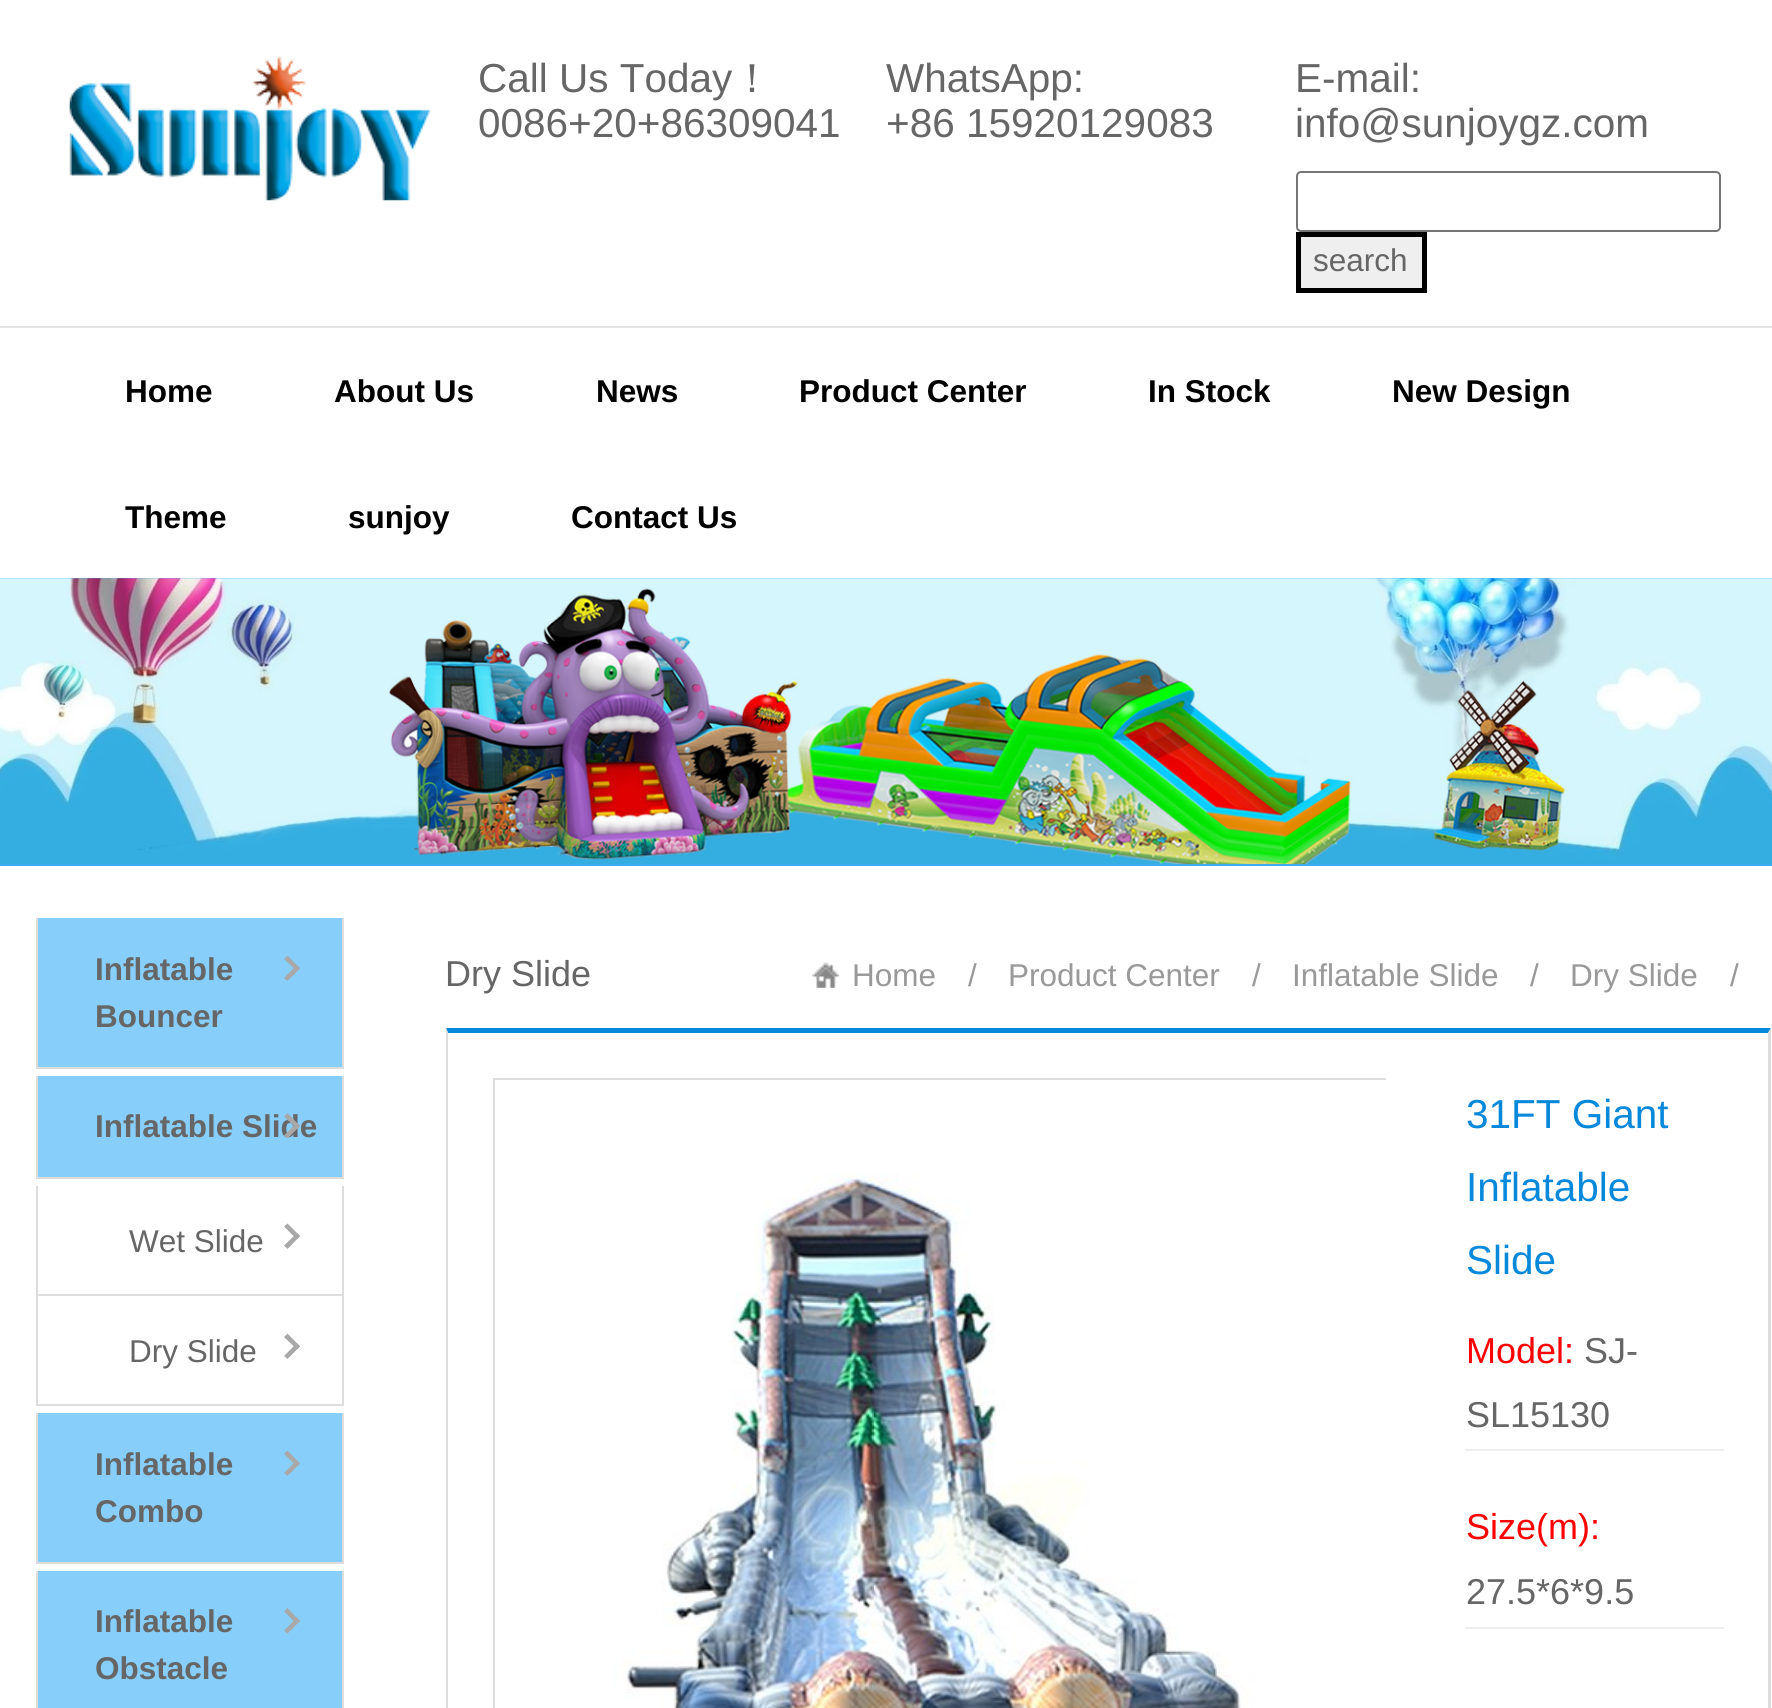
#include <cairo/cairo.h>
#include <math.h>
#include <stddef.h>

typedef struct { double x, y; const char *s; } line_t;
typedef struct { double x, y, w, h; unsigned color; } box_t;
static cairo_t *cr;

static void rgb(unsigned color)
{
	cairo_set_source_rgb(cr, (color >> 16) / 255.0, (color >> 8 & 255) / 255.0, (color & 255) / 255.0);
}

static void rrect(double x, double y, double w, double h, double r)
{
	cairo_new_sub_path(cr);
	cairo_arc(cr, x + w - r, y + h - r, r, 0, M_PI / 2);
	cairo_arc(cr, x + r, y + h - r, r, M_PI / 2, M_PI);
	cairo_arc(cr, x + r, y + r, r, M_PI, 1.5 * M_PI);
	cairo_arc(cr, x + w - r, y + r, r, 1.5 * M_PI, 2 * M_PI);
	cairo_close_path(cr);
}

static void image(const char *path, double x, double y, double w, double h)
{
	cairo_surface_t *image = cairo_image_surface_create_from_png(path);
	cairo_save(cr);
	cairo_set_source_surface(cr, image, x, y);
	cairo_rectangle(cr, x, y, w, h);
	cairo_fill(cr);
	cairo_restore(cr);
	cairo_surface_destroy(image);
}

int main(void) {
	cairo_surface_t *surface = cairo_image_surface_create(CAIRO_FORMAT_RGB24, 1772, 1708);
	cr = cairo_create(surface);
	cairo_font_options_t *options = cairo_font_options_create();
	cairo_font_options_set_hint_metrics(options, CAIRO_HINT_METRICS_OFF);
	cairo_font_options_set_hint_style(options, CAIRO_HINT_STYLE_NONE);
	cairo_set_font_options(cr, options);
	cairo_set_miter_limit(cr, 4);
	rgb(0xffffff);
	cairo_paint(cr);
	image("img/1.png", 69, 56, 361, 145);
	rrect(1297, 172, 423, 59, 4);
	rgb(0x767676);
	cairo_stroke(cr);
	rgb(0xefefef);
	cairo_rectangle(cr, 1298.5, 234.5, 126, 56);
	cairo_fill_preserve(cr);
	rgb(0x000000);
	cairo_set_line_width(cr, 5);
	cairo_stroke(cr);
	rgb(0xe4e4e4);
	cairo_rectangle(cr, 0, 326, 1772, 2);
	cairo_fill(cr);
	rgb(0x3dadf3);
	cairo_rectangle(cr, 0, 578, 1772, 288);
	cairo_fill(cr);
	image("img/2.png", 0, 578, 1772, 286);
	{
		static const box_t items[] = {
			{38, 918, 304, 149, 0x87cefa},
			{342, 918, 2, 151, 0xdddddd},
			{36, 1067, 308, 2, 0xdddddd},
			{36, 918, 2, 151, 0xdddddd},
		};
		for (size_t i = 0; i < sizeof items / sizeof *items; i++) {
			rgb(items[i].color);
			cairo_rectangle(cr, items[i].x, items[i].y, items[i].w, items[i].h);
			cairo_fill(cr);
		}
	}
	rgb(0xa8a8a8);
	cairo_new_path(cr);
	cairo_move_to(cr, 287.5, 955.5);
	cairo_line_to(cr, 300, 968.5);
	cairo_line_to(cr, 297, 971.5);
	cairo_line_to(cr, 284, 959);
	cairo_close_path(cr);
	cairo_fill(cr);
	cairo_new_path(cr);
	cairo_move_to(cr, 297, 965);
	cairo_line_to(cr, 300, 968.5);
	cairo_line_to(cr, 287.5, 981);
	cairo_line_to(cr, 284, 978);
	cairo_close_path(cr);
	cairo_fill(cr);
	{
		static const box_t items[] = {
			{38, 1076, 304, 101, 0x87cefa},
			{342, 1076, 2, 103, 0xdddddd},
			{36, 1177, 308, 2, 0xdddddd},
			{36, 1076, 2, 103, 0xdddddd},
			{342, 1186, 2, 220, 0xdddddd},
			{36, 1294, 308, 2, 0xdddddd},
			{36, 1186, 2, 110, 0xdddddd},
		};
		for (size_t i = 0; i < sizeof items / sizeof *items; i++) {
			rgb(items[i].color);
			cairo_rectangle(cr, items[i].x, items[i].y, items[i].w, items[i].h);
			cairo_fill(cr);
		}
	}
	rgb(0xa8a8a8);
	cairo_new_path(cr);
	cairo_move_to(cr, 287.5, 1223.5);
	cairo_line_to(cr, 300, 1236);
	cairo_line_to(cr, 297, 1239.5);
	cairo_line_to(cr, 284, 1226.5);
	cairo_close_path(cr);
	cairo_fill(cr);
	cairo_new_path(cr);
	cairo_move_to(cr, 297, 1233);
	cairo_line_to(cr, 300, 1236);
	cairo_line_to(cr, 287.5, 1249);
	cairo_line_to(cr, 284, 1245.5);
	cairo_close_path(cr);
	cairo_fill(cr);
	rgb(0xdddddd);
	cairo_rectangle(cr, 36, 1404, 308, 2);
	cairo_fill(cr);
	cairo_rectangle(cr, 36, 1296, 2, 110);
	cairo_fill(cr);
	rgb(0xa8a8a8);
	cairo_new_path(cr);
	cairo_move_to(cr, 287.5, 1333.5);
	cairo_line_to(cr, 300, 1346.5);
	cairo_line_to(cr, 297, 1349.5);
	cairo_line_to(cr, 284, 1337);
	cairo_close_path(cr);
	cairo_fill(cr);
	cairo_new_path(cr);
	cairo_move_to(cr, 297, 1343);
	cairo_line_to(cr, 300, 1346.5);
	cairo_line_to(cr, 287.5, 1359);
	cairo_line_to(cr, 284, 1356);
	cairo_close_path(cr);
	cairo_fill(cr);
	{
		static const box_t items[] = {
			{38, 1413, 304, 149, 0x87cefa},
			{342, 1413, 2, 151, 0xdddddd},
			{36, 1562, 308, 2, 0xdddddd},
			{36, 1413, 2, 151, 0xdddddd},
		};
		for (size_t i = 0; i < sizeof items / sizeof *items; i++) {
			rgb(items[i].color);
			cairo_rectangle(cr, items[i].x, items[i].y, items[i].w, items[i].h);
			cairo_fill(cr);
		}
	}
	rgb(0xa8a8a8);
	cairo_new_path(cr);
	cairo_move_to(cr, 287.5, 1450.5);
	cairo_line_to(cr, 300, 1463.5);
	cairo_line_to(cr, 297, 1466.5);
	cairo_line_to(cr, 284, 1454);
	cairo_close_path(cr);
	cairo_fill(cr);
	cairo_new_path(cr);
	cairo_move_to(cr, 297, 1460);
	cairo_line_to(cr, 300, 1463.5);
	cairo_line_to(cr, 287.5, 1476);
	cairo_line_to(cr, 284, 1473);
	cairo_close_path(cr);
	cairo_fill(cr);
	{
		static const box_t items[] = {
			{38, 1571, 304, 137, 0x87cefa},
			{342, 1571, 2, 137, 0xdddddd},
			{36, 1571, 2, 137, 0xdddddd},
		};
		for (size_t i = 0; i < sizeof items / sizeof *items; i++) {
			rgb(items[i].color);
			cairo_rectangle(cr, items[i].x, items[i].y, items[i].w, items[i].h);
			cairo_fill(cr);
		}
	}
	rgb(0xa8a8a8);
	cairo_new_path(cr);
	cairo_move_to(cr, 287.5, 1608);
	cairo_line_to(cr, 300, 1621);
	cairo_line_to(cr, 297, 1624);
	cairo_line_to(cr, 284, 1611.5);
	cairo_close_path(cr);
	cairo_fill(cr);
	cairo_new_path(cr);
	cairo_move_to(cr, 297, 1617.5);
	cairo_line_to(cr, 300, 1621);
	cairo_line_to(cr, 287.5, 1633.5);
	cairo_line_to(cr, 284, 1630.5);
	cairo_close_path(cr);
	cairo_fill(cr);
	image("img/3.png", 812, 962, 28, 26);
	rgb(0x0689db);
	cairo_new_path(cr);
	cairo_move_to(cr, 446, 1028);
	cairo_line_to(cr, 1771, 1028);
	cairo_line_to(cr, 1768, 1033);
	cairo_line_to(cr, 448, 1033);
	cairo_close_path(cr);
	cairo_fill(cr);
	rgb(0xdddddd);
	cairo_new_path(cr);
	cairo_move_to(cr, 1771, 1028);
	cairo_line_to(cr, 1771, 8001);
	cairo_line_to(cr, 1768, 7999);
	cairo_line_to(cr, 1768, 1033);
	cairo_close_path(cr);
	cairo_fill(cr);
	cairo_new_path(cr);
	cairo_move_to(cr, 446, 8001);
	cairo_line_to(cr, 446, 1028);
	cairo_line_to(cr, 448, 1033);
	cairo_line_to(cr, 448, 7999);
	cairo_close_path(cr);
	cairo_fill(cr);
	cairo_rectangle(cr, 494, 1079, 891, 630);
	cairo_set_line_width(cr, 2);
	cairo_stroke(cr);
	image("img/4.png", 495, 1080, 891, 628);
	rgb(0xeeeeee);
	cairo_rectangle(cr, 1465, 1449, 259, 2);
	cairo_fill(cr);
	cairo_rectangle(cr, 1465, 1627, 259, 2);
	cairo_fill(cr);
	cairo_select_font_face(cr, "Liberation Sans", CAIRO_FONT_SLANT_NORMAL, CAIRO_FONT_WEIGHT_NORMAL);
	cairo_set_font_size(cr, 40.5);
	rgb(0x666666);
	cairo_move_to(cr, 478, 92);
	cairo_show_text(cr, "Call Us Today");
	cairo_select_font_face(cr, "WenQuanYi Zen Hei Medium", CAIRO_FONT_SLANT_NORMAL, CAIRO_FONT_WEIGHT_NORMAL);
	cairo_move_to(cr, 732, 92);
	cairo_show_text(cr, "！");
	cairo_select_font_face(cr, "Liberation Sans", CAIRO_FONT_SLANT_NORMAL, CAIRO_FONT_WEIGHT_NORMAL);
	{
		static const line_t items[] = {
			{478, 137, "0086+20+86309041"},
			{886, 92, "WhatsApp:"},
			{886, 137, "+86 15920129083"},
			{1295, 92, "E-mail:"},
			{1295, 137, "info@sunjoygz.com"},
		};
		for (size_t i = 0; i < sizeof items / sizeof *items; i++) {
			cairo_move_to(cr, items[i].x, items[i].y);
			cairo_show_text(cr, items[i].s);
		}
	}
	cairo_set_font_size(cr, 31.5);
	cairo_move_to(cr, 1313, 271);
	cairo_show_text(cr, "search");
	cairo_select_font_face(cr, "Liberation Sans", CAIRO_FONT_SLANT_NORMAL, CAIRO_FONT_WEIGHT_BOLD);
	rgb(0x000000);
	{
		static const line_t items[] = {
			{125, 402, "Home"},
			{334, 402, "About Us"},
			{596, 402, "News"},
			{799, 402, "Product Center"},
			{1148, 402, "In Stock"},
			{1392, 402, "New Design"},
			{125, 528, "Theme"},
			{348, 528, "sunjoy"},
			{571, 528, "Contact Us"},
		};
		for (size_t i = 0; i < sizeof items / sizeof *items; i++) {
			cairo_move_to(cr, items[i].x, items[i].y);
			cairo_show_text(cr, items[i].s);
		}
	}
	rgb(0x666666);
	{
		static const line_t items[] = {
			{95, 980, "Inflatable"},
			{95, 1027, "Bouncer"},
			{95, 1137, "Inflatable Slide"},
		};
		for (size_t i = 0; i < sizeof items / sizeof *items; i++) {
			cairo_move_to(cr, items[i].x, items[i].y);
			cairo_show_text(cr, items[i].s);
		}
	}
	rgb(0xa8a8a8);
	cairo_new_path(cr);
	cairo_move_to(cr, 287.5, 1113);
	cairo_line_to(cr, 300, 1126);
	cairo_line_to(cr, 297, 1129);
	cairo_line_to(cr, 284, 1116.5);
	cairo_close_path(cr);
	cairo_fill(cr);
	cairo_new_path(cr);
	cairo_move_to(cr, 297, 1122.5);
	cairo_line_to(cr, 300, 1126);
	cairo_line_to(cr, 287.5, 1138.5);
	cairo_line_to(cr, 284, 1135.5);
	cairo_close_path(cr);
	cairo_fill(cr);
	cairo_select_font_face(cr, "Liberation Sans", CAIRO_FONT_SLANT_NORMAL, CAIRO_FONT_WEIGHT_NORMAL);
	rgb(0x666666);
	cairo_move_to(cr, 129, 1252);
	cairo_show_text(cr, "Wet Slide");
	cairo_move_to(cr, 129, 1362);
	cairo_show_text(cr, "Dry Slide");
	cairo_select_font_face(cr, "Liberation Sans", CAIRO_FONT_SLANT_NORMAL, CAIRO_FONT_WEIGHT_BOLD);
	{
		static const line_t items[] = {
			{95, 1475, "Inflatable"},
			{95, 1522, "Combo"},
			{95, 1632, "Inflatable"},
			{95, 1679, "Obstacle"},
		};
		for (size_t i = 0; i < sizeof items / sizeof *items; i++) {
			cairo_move_to(cr, items[i].x, items[i].y);
			cairo_show_text(cr, items[i].s);
		}
	}
	cairo_select_font_face(cr, "Liberation Sans", CAIRO_FONT_SLANT_NORMAL, CAIRO_FONT_WEIGHT_NORMAL);
	cairo_set_font_size(cr, 36);
	cairo_move_to(cr, 445, 986);
	cairo_show_text(cr, "Dry Slide");
	cairo_set_font_size(cr, 31.5);
	rgb(0x999999);
	{
		static const line_t items[] = {
			{852, 986, "Home"},
			{968, 986, "/"},
			{1008, 986, "Product Center"},
			{1252, 986, "/"},
			{1292, 986, "Inflatable Slide"},
			{1530, 986, "/"},
			{1570, 986, "Dry Slide"},
			{1730, 986, "/"},
		};
		for (size_t i = 0; i < sizeof items / sizeof *items; i++) {
			cairo_move_to(cr, items[i].x, items[i].y);
			cairo_show_text(cr, items[i].s);
		}
	}
	cairo_set_font_size(cr, 40.5);
	rgb(0x0689db);
	{
		static const line_t items[] = {
			{1466, 1128, "31FT Giant"},
			{1466, 1201, "Inflatable"},
			{1466, 1274, "Slide"},
		};
		for (size_t i = 0; i < sizeof items / sizeof *items; i++) {
			cairo_move_to(cr, items[i].x, items[i].y);
			cairo_show_text(cr, items[i].s);
		}
	}
	cairo_set_font_size(cr, 36);
	rgb(0xff0000);
	cairo_move_to(cr, 1466, 1363);
	cairo_show_text(cr, "Model:");
	rgb(0x666666);
	cairo_move_to(cr, 1584, 1363);
	cairo_show_text(cr, "SJ-");
	cairo_move_to(cr, 1466, 1427);
	cairo_show_text(cr, "SL15130");
	rgb(0xff0000);
	cairo_move_to(cr, 1466, 1539);
	cairo_show_text(cr, "Size(m):");
	rgb(0x666666);
	cairo_move_to(cr, 1466, 1604);
	cairo_show_text(cr, "27.5*6*9.5");
	cairo_surface_write_to_png(surface, "page.png");
	cairo_font_options_destroy(options);
	cairo_destroy(cr);
	cairo_surface_destroy(surface);
	return 0;
}
